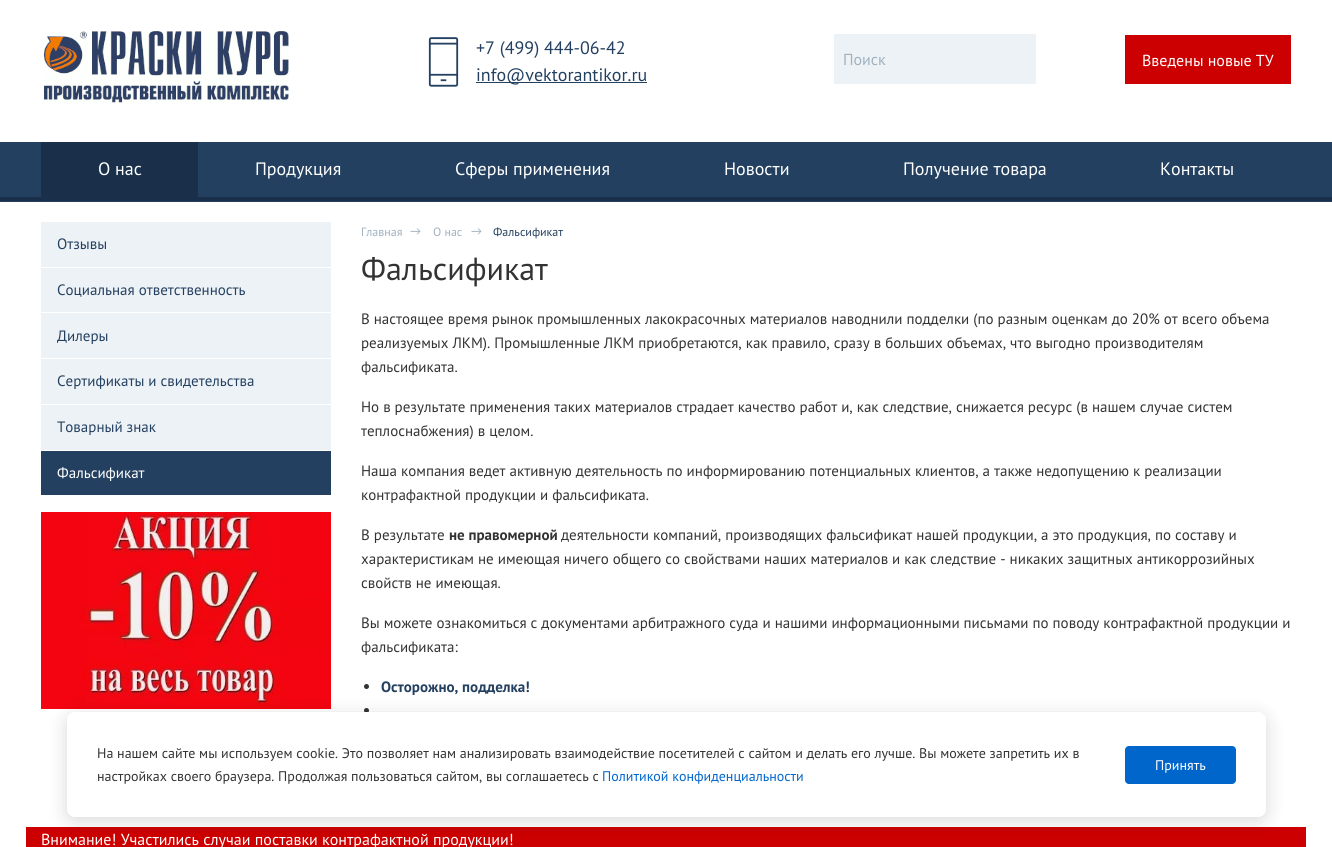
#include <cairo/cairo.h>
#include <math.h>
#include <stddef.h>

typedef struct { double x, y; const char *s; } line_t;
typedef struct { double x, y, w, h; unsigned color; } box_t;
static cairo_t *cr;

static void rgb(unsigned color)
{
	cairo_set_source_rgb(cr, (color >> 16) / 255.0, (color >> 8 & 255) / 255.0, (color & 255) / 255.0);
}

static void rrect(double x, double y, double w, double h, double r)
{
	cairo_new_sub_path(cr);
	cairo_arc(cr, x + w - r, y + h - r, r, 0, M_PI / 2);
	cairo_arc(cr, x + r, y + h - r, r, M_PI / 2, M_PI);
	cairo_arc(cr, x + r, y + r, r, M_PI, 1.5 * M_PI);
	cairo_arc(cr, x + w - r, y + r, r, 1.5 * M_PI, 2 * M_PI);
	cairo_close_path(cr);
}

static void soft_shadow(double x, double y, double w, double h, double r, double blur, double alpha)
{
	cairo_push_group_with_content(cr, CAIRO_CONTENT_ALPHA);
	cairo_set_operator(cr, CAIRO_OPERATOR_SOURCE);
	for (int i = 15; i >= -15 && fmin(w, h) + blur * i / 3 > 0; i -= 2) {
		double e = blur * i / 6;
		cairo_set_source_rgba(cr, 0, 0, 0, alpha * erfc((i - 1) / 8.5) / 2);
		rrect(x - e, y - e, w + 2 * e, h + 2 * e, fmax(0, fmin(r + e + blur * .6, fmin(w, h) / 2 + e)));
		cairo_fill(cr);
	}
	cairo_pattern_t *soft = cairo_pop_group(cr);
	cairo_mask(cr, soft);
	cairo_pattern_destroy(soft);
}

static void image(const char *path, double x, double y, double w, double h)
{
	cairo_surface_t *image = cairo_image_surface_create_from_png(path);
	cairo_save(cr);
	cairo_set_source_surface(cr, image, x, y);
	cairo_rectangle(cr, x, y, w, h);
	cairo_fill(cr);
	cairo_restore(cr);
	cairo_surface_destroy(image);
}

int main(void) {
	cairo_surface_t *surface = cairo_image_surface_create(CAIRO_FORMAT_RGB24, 1332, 847);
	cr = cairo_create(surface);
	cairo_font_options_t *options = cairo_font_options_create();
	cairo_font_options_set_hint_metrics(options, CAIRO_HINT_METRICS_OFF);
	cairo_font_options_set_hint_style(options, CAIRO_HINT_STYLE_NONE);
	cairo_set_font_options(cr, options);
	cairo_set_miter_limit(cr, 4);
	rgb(0xffffff);
	cairo_paint(cr);
	rgb(0x244060);
	cairo_rectangle(cr, 0, 201, 1332, 1);
	cairo_fill(cr);
	image("img/1.png", 44, 31, 245, 72);
	image("img/2.png", 428, 37, 31, 50);
	{
		static const box_t items[] = {
			{476, 82, 171, 1, 0x244060},
			{834, 34, 202, 50, 0xedf2f6},
			{1125, 35, 166, 49, 0xcc0000},
			{0, 197, 1332, 4, 0x1a304a},
			{0, 142, 1332, 55, 0x244060},
			{41, 142, 157, 55, 0x1a304a},
			{41, 222, 290, 45, 0xedf2f6},
			{41, 268, 290, 44, 0xedf2f6},
			{41, 313, 290, 45, 0xedf2f6},
			{41, 359, 290, 45, 0xedf2f6},
			{41, 405, 290, 45, 0xedf2f6},
			{41, 451, 290, 44, 0x244060},
		};
		for (size_t i = 0; i < sizeof items / sizeof *items; i++) {
			rgb(items[i].color);
			cairo_rectangle(cr, items[i].x, items[i].y, items[i].w, items[i].h);
			cairo_fill(cr);
		}
	}
	image("img/3.png", 41, 512, 290, 197);
	rgb(0x333333);
	cairo_arc(cr, 366.5, 686.5, 2.5, 0, 2 * M_PI);
	cairo_fill(cr);
	cairo_arc(cr, 366.5, 710.5, 2.5, 0, 2 * M_PI);
	cairo_fill(cr);
	rgb(0xcc0000);
	cairo_rectangle(cr, 26, 827, 1280, 20);
	cairo_fill(cr);
	rgb(0x000000);
	soft_shadow(67, 716, 1199, 105, 8, 10, 0.15);
	rgb(0xffffff);
	rrect(67, 712, 1199, 105, 8);
	cairo_fill(cr);
	rgb(0x0066cc);
	rrect(1125, 746, 111, 38, 4);
	cairo_fill(cr);
	cairo_select_font_face(cr, "PT Sans", CAIRO_FONT_SLANT_NORMAL, CAIRO_FONT_WEIGHT_NORMAL);
	cairo_set_font_size(cr, 18);
	rgb(0x244060);
	cairo_move_to(cr, 476, 54);
	cairo_show_text(cr, "+7 (499) 444-06-42");
	cairo_move_to(cr, 476, 81);
	cairo_show_text(cr, "info@vektorantikor.ru");
	cairo_set_font_size(cr, 16);
	rgb(0xa0b1bf);
	cairo_move_to(cr, 843, 65);
	cairo_show_text(cr, "Поиск");
	rgb(0xffffff);
	cairo_move_to(cr, 1142, 66);
	cairo_show_text(cr, "Введены новые ТУ");
	cairo_set_font_size(cr, 18);
	{
		static const line_t items[] = {
			{98, 175, "О нас"},
			{255, 175, "Продукция"},
			{455, 175, "Сферы применения"},
			{724, 175, "Новости"},
			{903, 175, "Получение товара"},
			{1160, 175, "Контакты"},
		};
		for (size_t i = 0; i < sizeof items / sizeof *items; i++) {
			cairo_move_to(cr, items[i].x, items[i].y);
			cairo_show_text(cr, items[i].s);
		}
	}
	cairo_set_font_size(cr, 15);
	rgb(0x244060);
	{
		static const line_t items[] = {
			{57, 249, "Отзывы"},
			{57, 295, "Социальная ответственность"},
			{57, 341, "Дилеры"},
			{57, 386, "Сертификаты и свидетельства"},
			{57, 432, "Товарный знак"},
		};
		for (size_t i = 0; i < sizeof items / sizeof *items; i++) {
			cairo_move_to(cr, items[i].x, items[i].y);
			cairo_show_text(cr, items[i].s);
		}
	}
	rgb(0xffffff);
	cairo_move_to(cr, 57, 478);
	cairo_show_text(cr, "Фальсификат");
	cairo_set_font_size(cr, 12);
	rgb(0xa0b1bf);
	cairo_move_to(cr, 361, 236);
	cairo_show_text(cr, "Главная");
	cairo_select_font_face(cr, "Carlito", CAIRO_FONT_SLANT_NORMAL, CAIRO_FONT_WEIGHT_NORMAL);
	cairo_move_to(cr, 410, 235);
	cairo_show_text(cr, "→");
	cairo_select_font_face(cr, "PT Sans", CAIRO_FONT_SLANT_NORMAL, CAIRO_FONT_WEIGHT_NORMAL);
	cairo_move_to(cr, 433, 236);
	cairo_show_text(cr, "О нас");
	cairo_select_font_face(cr, "Carlito", CAIRO_FONT_SLANT_NORMAL, CAIRO_FONT_WEIGHT_NORMAL);
	cairo_move_to(cr, 471, 235);
	cairo_show_text(cr, "→");
	cairo_select_font_face(cr, "PT Sans", CAIRO_FONT_SLANT_NORMAL, CAIRO_FONT_WEIGHT_NORMAL);
	rgb(0x244060);
	cairo_move_to(cr, 493, 236);
	cairo_show_text(cr, "Фальсификат");
	cairo_set_font_size(cr, 32);
	rgb(0x333333);
	cairo_move_to(cr, 361, 280);
	cairo_show_text(cr, "Фальсификат");
	cairo_set_font_size(cr, 15);
	{
		static const line_t items[] = {
			{361, 324, "В настоящее время рынок промышленных лакокрасочных материалов наводнили подделки (по разным оценкам до 20% от всего объема"},
			{361, 348, "реализуемых ЛКМ). Промышленные ЛКМ приобретаются, как правило, сразу в больших объемах, что выгодно производителям"},
			{361, 372, "фальсификата."},
			{361, 412, "Но в результате применения таких материалов страдает качество работ и, как следствие, снижается ресурс (в нашем случае систем"},
			{361, 436, "теплоснабжения) в целом."},
			{361, 476, "Наша компания ведет активную деятельность по информированию потенциальных клиентов, а также недопущению к реализации"},
			{361, 500, "контрафактной продукции и фальсификата."},
			{361, 540, "В результате"},
		};
		for (size_t i = 0; i < sizeof items / sizeof *items; i++) {
			cairo_move_to(cr, items[i].x, items[i].y);
			cairo_show_text(cr, items[i].s);
		}
	}
	cairo_select_font_face(cr, "PT Sans", CAIRO_FONT_SLANT_NORMAL, CAIRO_FONT_WEIGHT_BOLD);
	cairo_move_to(cr, 449, 540);
	cairo_show_text(cr, "не правомерной");
	cairo_select_font_face(cr, "PT Sans", CAIRO_FONT_SLANT_NORMAL, CAIRO_FONT_WEIGHT_NORMAL);
	{
		static const line_t items[] = {
			{561, 540, "деятельности компаний, производящих фальсификат нашей продукции, а это продукция, по составу и"},
			{361, 564, "характеристикам не имеющая ничего общего со свойствами наших материалов и как следствие - никаких защитных антикоррозийных"},
			{361, 588, "свойств не имеющая."},
			{361, 628, "Вы можете ознакомиться с документами арбитражного суда и нашими информационными письмами по поводу контрафактной продукции и"},
			{361, 652, "фальсификата:"},
		};
		for (size_t i = 0; i < sizeof items / sizeof *items; i++) {
			cairo_move_to(cr, items[i].x, items[i].y);
			cairo_show_text(cr, items[i].s);
		}
	}
	cairo_select_font_face(cr, "PT Sans", CAIRO_FONT_SLANT_NORMAL, CAIRO_FONT_WEIGHT_BOLD);
	rgb(0x244060);
	cairo_move_to(cr, 381, 692);
	cairo_show_text(cr, "Осторожно, подделка!");
	cairo_select_font_face(cr, "PT Sans", CAIRO_FONT_SLANT_NORMAL, CAIRO_FONT_WEIGHT_NORMAL);
	cairo_set_font_size(cr, 14);
	rgb(0x333333);
	cairo_move_to(cr, 97, 758);
	cairo_show_text(cr, "На нашем сайте мы используем cookie. Это позволяет нам анализировать взаимодействие посетителей с сайтом и делать его лучше. Вы можете запретить их в");
	cairo_move_to(cr, 97, 781);
	cairo_show_text(cr, "настройках своего браузера. Продолжая пользоваться сайтом, вы соглашаетесь с");
	rgb(0x0066cc);
	cairo_move_to(cr, 602, 781);
	cairo_show_text(cr, "Политикой конфиденциальности");
	rgb(0xffffff);
	cairo_move_to(cr, 1155, 770);
	cairo_show_text(cr, "Принять");
	cairo_set_font_size(cr, 16);
	cairo_move_to(cr, 41, 845);
	cairo_show_text(cr, "Внимание! Участились случаи поставки контрафактной продукции!");
	cairo_surface_write_to_png(surface, "page.png");
	cairo_font_options_destroy(options);
	cairo_destroy(cr);
	cairo_surface_destroy(surface);
	return 0;
}
